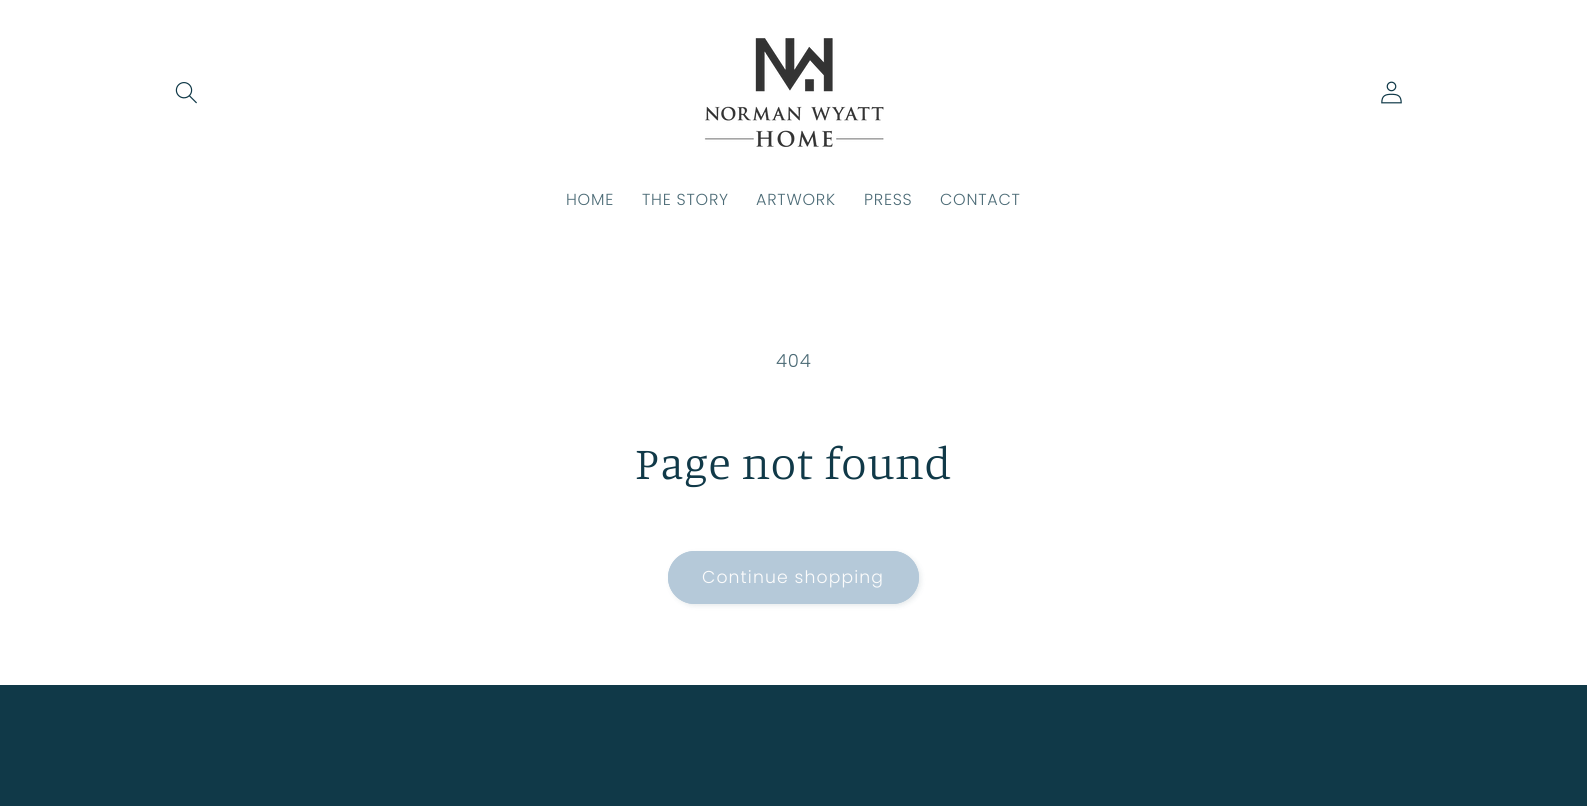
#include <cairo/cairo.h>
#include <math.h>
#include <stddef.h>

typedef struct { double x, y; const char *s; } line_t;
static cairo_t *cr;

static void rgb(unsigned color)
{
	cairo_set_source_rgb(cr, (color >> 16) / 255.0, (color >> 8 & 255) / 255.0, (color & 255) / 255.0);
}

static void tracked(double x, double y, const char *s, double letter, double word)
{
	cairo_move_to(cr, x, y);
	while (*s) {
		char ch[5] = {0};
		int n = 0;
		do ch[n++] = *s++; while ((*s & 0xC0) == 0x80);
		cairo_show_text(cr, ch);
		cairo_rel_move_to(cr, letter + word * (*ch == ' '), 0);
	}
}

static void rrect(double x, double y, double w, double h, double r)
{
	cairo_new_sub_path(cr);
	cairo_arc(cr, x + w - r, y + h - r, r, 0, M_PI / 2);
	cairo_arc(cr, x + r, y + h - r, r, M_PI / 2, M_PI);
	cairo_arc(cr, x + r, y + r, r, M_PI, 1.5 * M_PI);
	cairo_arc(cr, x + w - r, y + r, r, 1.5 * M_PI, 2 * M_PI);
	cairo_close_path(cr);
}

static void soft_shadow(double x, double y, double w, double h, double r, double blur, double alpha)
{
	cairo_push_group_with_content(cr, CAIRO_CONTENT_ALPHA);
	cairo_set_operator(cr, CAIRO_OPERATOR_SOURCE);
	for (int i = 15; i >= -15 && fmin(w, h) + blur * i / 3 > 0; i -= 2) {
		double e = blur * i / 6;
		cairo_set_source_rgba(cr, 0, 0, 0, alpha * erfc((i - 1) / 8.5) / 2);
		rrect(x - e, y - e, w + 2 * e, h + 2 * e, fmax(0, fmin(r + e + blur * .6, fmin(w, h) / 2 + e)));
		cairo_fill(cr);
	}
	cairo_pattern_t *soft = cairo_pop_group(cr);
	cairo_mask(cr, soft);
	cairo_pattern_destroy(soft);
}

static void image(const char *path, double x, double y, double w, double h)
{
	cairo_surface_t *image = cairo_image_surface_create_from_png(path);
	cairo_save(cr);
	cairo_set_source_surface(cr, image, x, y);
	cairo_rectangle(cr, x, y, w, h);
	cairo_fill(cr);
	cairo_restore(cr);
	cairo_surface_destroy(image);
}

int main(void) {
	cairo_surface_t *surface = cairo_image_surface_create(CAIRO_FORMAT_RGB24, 1587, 806);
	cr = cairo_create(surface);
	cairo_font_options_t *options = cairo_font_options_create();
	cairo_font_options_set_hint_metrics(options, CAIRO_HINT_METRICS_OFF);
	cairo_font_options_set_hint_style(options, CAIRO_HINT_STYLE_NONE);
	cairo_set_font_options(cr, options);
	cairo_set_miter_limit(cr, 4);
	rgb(0xffffff);
	cairo_paint(cr);
	image("img/1.png", 175, 82, 22, 22);
	image("img/2.png", 704, 38, 180, 109);
	image("img/3.png", 1381, 81, 21, 23);
	rgb(0x103948);
	soft_shadow(670, 553, 251, 53, 26.5, 2.5, 0.1);
	rgb(0xb5c9d9);
	rrect(668, 551, 251, 53, 26.5);
	cairo_fill(cr);
	rrect(668.5, 551.5, 250, 52, 26);
	cairo_set_line_width(cr, 1);
	cairo_stroke(cr);
	rgb(0x103948);
	cairo_rectangle(cr, 0, 685, 1587, 121);
	cairo_fill(cr);
	cairo_select_font_face(cr, "Poppins Light", CAIRO_FONT_SLANT_NORMAL, CAIRO_FONT_WEIGHT_NORMAL);
	cairo_set_font_size(cr, 16);
	rgb(0x4c6b76);
	{
		static const line_t items[] = {
			{566, 205, "HOME"},
			{642, 205, "THE STORY"},
			{756, 205, "ARTWORK"},
			{864, 205, "PRESS"},
			{940, 205, "CONTACT"},
		};
		for (size_t i = 0; i < sizeof items / sizeof *items; i++) {
			tracked(items[i].x, items[i].y, items[i].s, 0.75, 0);
		}
	}
	cairo_set_font_size(cr, 18);
	tracked(776, 367, "404", 0.75, 0);
	cairo_select_font_face(cr, "Manuale Light", CAIRO_FONT_SLANT_NORMAL, CAIRO_FONT_WEIGHT_NORMAL);
	cairo_set_font_size(cr, 46);
	rgb(0x103948);
	tracked(635, 479, "Page not found", 0.75, 0);
	cairo_select_font_face(cr, "Poppins Light", CAIRO_FONT_SLANT_NORMAL, CAIRO_FONT_WEIGHT_NORMAL);
	cairo_set_font_size(cr, 17.25);
	rgb(0xfcfcfc);
	tracked(702, 583, "Continue shopping", 1.1, 0);
	cairo_surface_write_to_png(surface, "page.png");
	cairo_font_options_destroy(options);
	cairo_destroy(cr);
	cairo_surface_destroy(surface);
	return 0;
}
